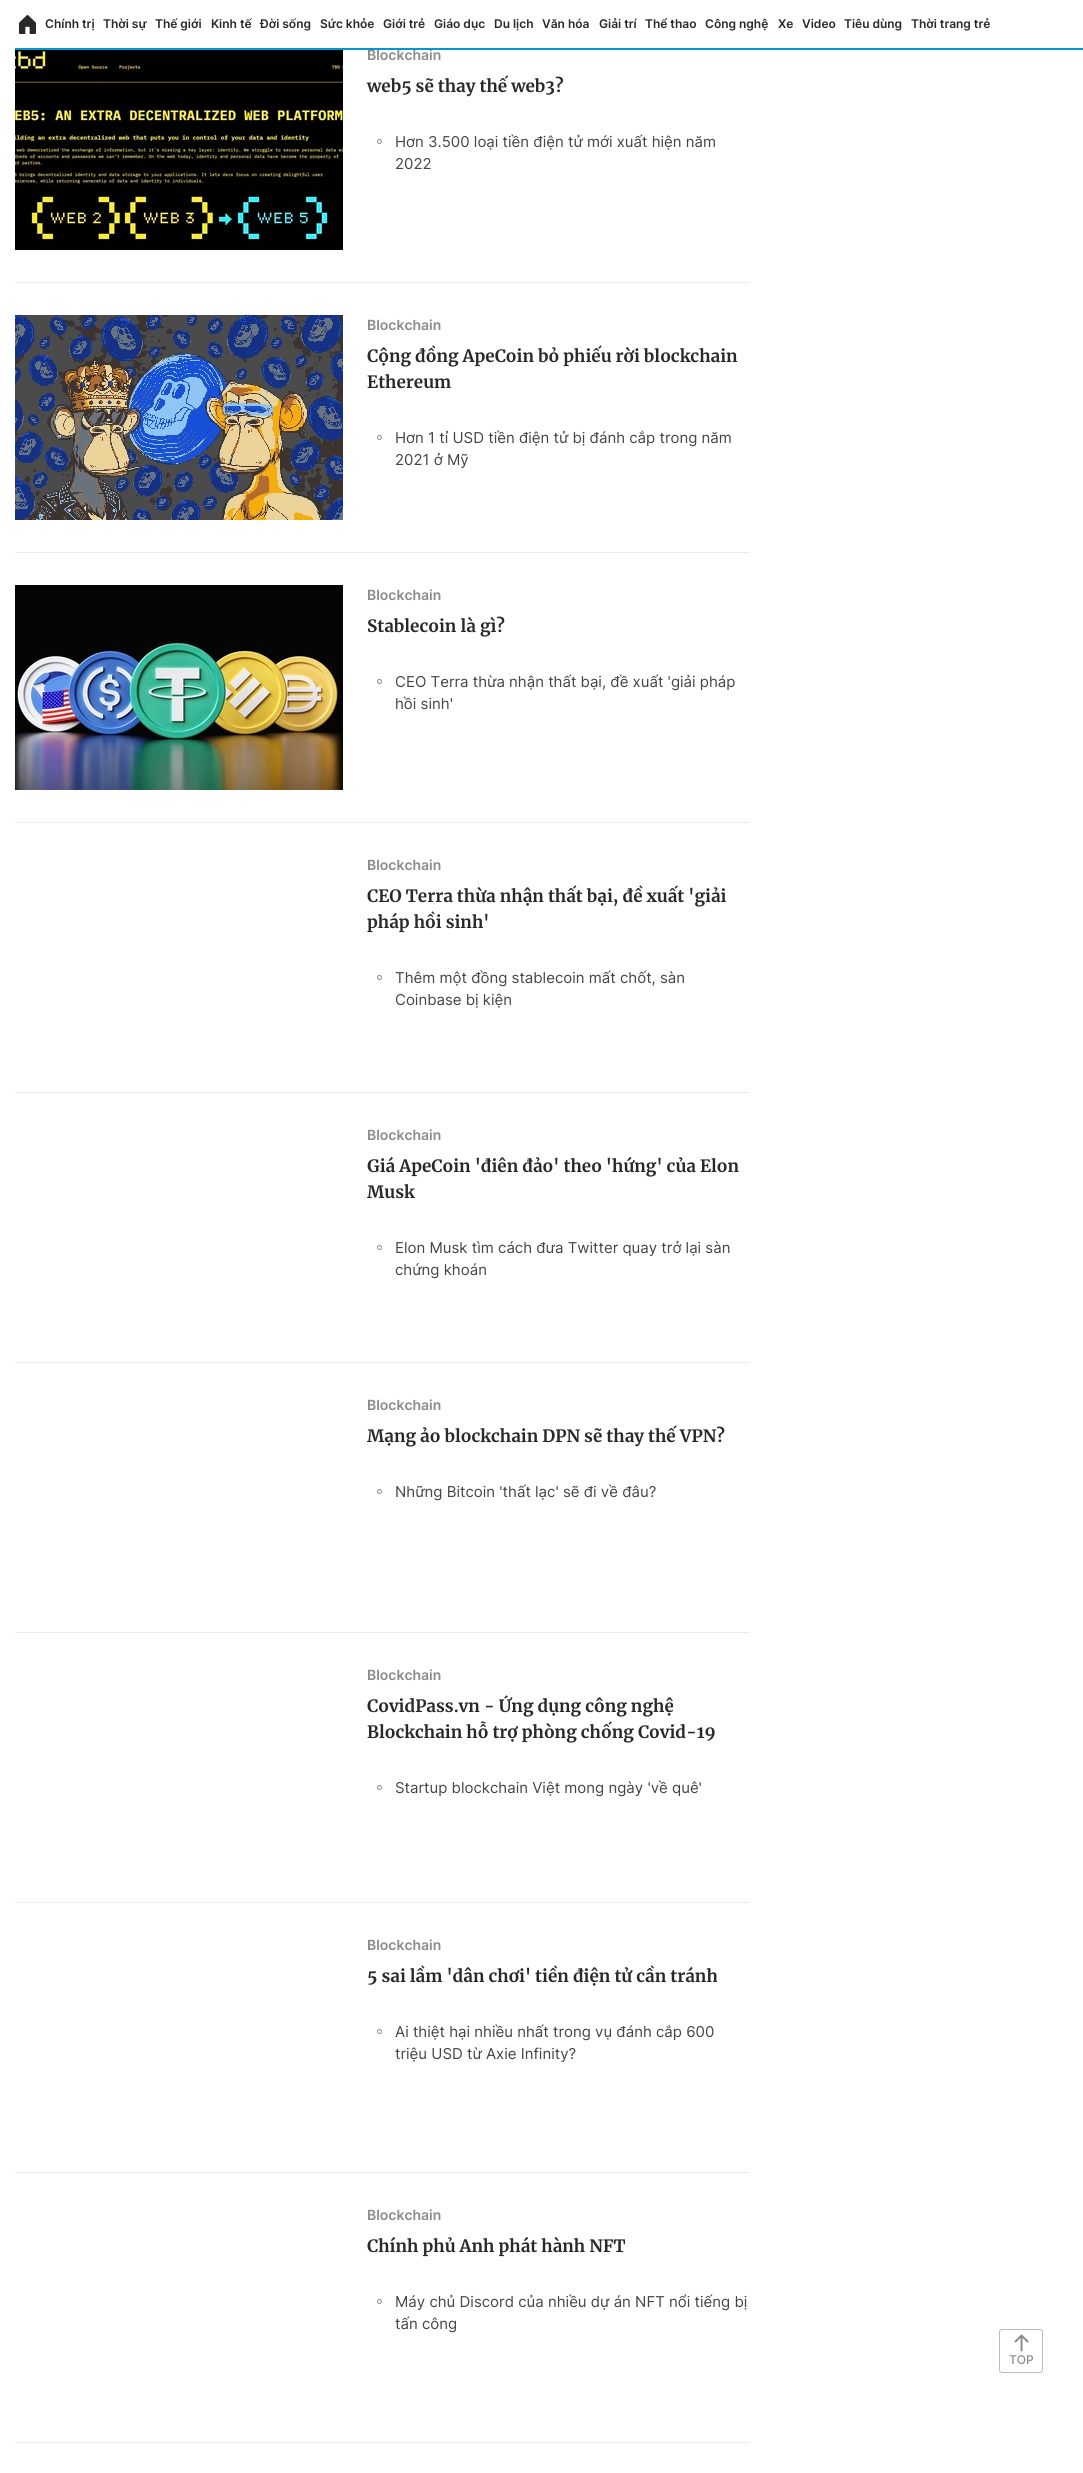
#include <cairo/cairo.h>
#include <math.h>
#include <stddef.h>

typedef struct { double x, y; const char *s; } line_t;
static cairo_t *cr;

static void rgb(unsigned color)
{
	cairo_set_source_rgb(cr, (color >> 16) / 255.0, (color >> 8 & 255) / 255.0, (color & 255) / 255.0);
}

static void rrect(double x, double y, double w, double h, double r)
{
	cairo_new_sub_path(cr);
	cairo_arc(cr, x + w - r, y + h - r, r, 0, M_PI / 2);
	cairo_arc(cr, x + r, y + h - r, r, M_PI / 2, M_PI);
	cairo_arc(cr, x + r, y + r, r, M_PI, 1.5 * M_PI);
	cairo_arc(cr, x + w - r, y + r, r, 1.5 * M_PI, 2 * M_PI);
	cairo_close_path(cr);
}

static void image(const char *path, double x, double y, double w, double h)
{
	cairo_surface_t *image = cairo_image_surface_create_from_png(path);
	cairo_save(cr);
	cairo_set_source_surface(cr, image, x, y);
	cairo_rectangle(cr, x, y, w, h);
	cairo_fill(cr);
	cairo_restore(cr);
	cairo_surface_destroy(image);
}

int main(void) {
	cairo_surface_t *surface = cairo_image_surface_create(CAIRO_FORMAT_RGB24, 1083, 2473);
	cr = cairo_create(surface);
	cairo_font_options_t *options = cairo_font_options_create();
	cairo_font_options_set_hint_metrics(options, CAIRO_HINT_METRICS_OFF);
	cairo_font_options_set_hint_style(options, CAIRO_HINT_STYLE_NONE);
	cairo_set_font_options(cr, options);
	cairo_set_miter_limit(cr, 4);
	rgb(0xffffff);
	cairo_paint(cr);
	image("img/1.png", 19, 15, 17, 19);
	rgb(0xebebeb);
	cairo_rectangle(cr, 15, 282, 735, 1);
	cairo_fill(cr);
	image("img/2.png", 15, 50, 328, 200);
	cairo_arc(cr, 379.5, 141.5, 2, 0, 2 * M_PI);
	rgb(0x8b8b8b);
	cairo_set_line_width(cr, 1);
	cairo_stroke(cr);
	rgb(0xebebeb);
	cairo_rectangle(cr, 15, 552, 735, 1);
	cairo_fill(cr);
	image("img/3.png", 15, 315, 328, 205);
	cairo_arc(cr, 379.5, 437.5, 2, 0, 2 * M_PI);
	rgb(0x8b8b8b);
	cairo_stroke(cr);
	rgb(0xebebeb);
	cairo_rectangle(cr, 15, 822, 735, 1);
	cairo_fill(cr);
	image("img/4.png", 15, 585, 328, 205);
	cairo_arc(cr, 379.5, 681.5, 2, 0, 2 * M_PI);
	rgb(0x8b8b8b);
	cairo_stroke(cr);
	rgb(0xebebeb);
	cairo_rectangle(cr, 15, 1092, 735, 1);
	cairo_fill(cr);
	cairo_arc(cr, 379.5, 977.5, 2, 0, 2 * M_PI);
	rgb(0x8b8b8b);
	cairo_stroke(cr);
	rgb(0xebebeb);
	cairo_rectangle(cr, 15, 1362, 735, 1);
	cairo_fill(cr);
	cairo_arc(cr, 379.5, 1247.5, 2, 0, 2 * M_PI);
	rgb(0x8b8b8b);
	cairo_stroke(cr);
	rgb(0xebebeb);
	cairo_rectangle(cr, 15, 1632, 735, 1);
	cairo_fill(cr);
	cairo_arc(cr, 379.5, 1491.5, 2, 0, 2 * M_PI);
	rgb(0x8b8b8b);
	cairo_stroke(cr);
	rgb(0xebebeb);
	cairo_rectangle(cr, 15, 1902, 735, 1);
	cairo_fill(cr);
	cairo_arc(cr, 379.5, 1787.5, 2, 0, 2 * M_PI);
	rgb(0x8b8b8b);
	cairo_stroke(cr);
	rgb(0xebebeb);
	cairo_rectangle(cr, 15, 2172, 735, 1);
	cairo_fill(cr);
	cairo_arc(cr, 379.5, 2031.5, 2, 0, 2 * M_PI);
	rgb(0x8b8b8b);
	cairo_stroke(cr);
	rgb(0xebebeb);
	cairo_rectangle(cr, 15, 2442, 735, 1);
	cairo_fill(cr);
	cairo_arc(cr, 379.5, 2301.5, 2, 0, 2 * M_PI);
	rgb(0x8b8b8b);
	cairo_stroke(cr);
	rrect(999.5, 2329.5, 43, 43, 2.5);
	rgb(0xbdbdbd);
	cairo_stroke(cr);
	image("img/5.png", 1014, 2334, 15, 18);
	cairo_select_font_face(cr, "Inter SemiBold", CAIRO_FONT_SLANT_NORMAL, CAIRO_FONT_WEIGHT_NORMAL);
	cairo_set_font_size(cr, 12);
	rgb(0x292929);
	{
		static const line_t items[] = {
			{45, 28, "Chính trị"},
			{103, 28, "Thời sự"},
			{155, 28, "Thế giới"},
			{211, 28, "Kinh tế"},
			{260, 28, "Đời sống"},
			{320, 28, "Sức khỏe"},
			{383, 28, "Giới trẻ"},
			{434, 28, "Giáo dục"},
			{494, 28, "Du lịch"},
			{542, 28, "Văn hóa"},
			{599, 28, "Giải trí"},
			{645, 28, "Thể thao"},
			{705, 28, "Công nghệ"},
			{778, 28, "Xe"},
			{802, 28, "Video"},
			{844, 28, "Tiêu dùng"},
			{911, 28, "Thời trang trẻ"},
		};
		for (size_t i = 0; i < sizeof items / sizeof *items; i++) {
			cairo_move_to(cr, items[i].x, items[i].y);
			cairo_show_text(cr, items[i].s);
		}
	}
	cairo_set_font_size(cr, 14);
	rgb(0x8b8b8b);
	cairo_move_to(cr, 367, 60);
	cairo_show_text(cr, "Blockchain");
	rgb(0xffffff);
	cairo_rectangle(cr, 368, 49, 64, 1);
	cairo_fill(cr);
	rgb(0x0098d1);
	cairo_rectangle(cr, 15, 48, 1068, 2);
	cairo_fill(cr);
	cairo_select_font_face(cr, "Merriweather", CAIRO_FONT_SLANT_NORMAL, CAIRO_FONT_WEIGHT_BOLD);
	cairo_set_font_size(cr, 17);
	rgb(0x292929);
	cairo_move_to(cr, 367, 92);
	cairo_show_text(cr, "web5 sẽ thay thế web3?");
	cairo_select_font_face(cr, "Inter", CAIRO_FONT_SLANT_NORMAL, CAIRO_FONT_WEIGHT_NORMAL);
	cairo_set_font_size(cr, 15);
	rgb(0x454545);
	cairo_move_to(cr, 395, 147);
	cairo_show_text(cr, "Hơn 3.500 loại tiền điện tử mới xuất hiện năm");
	cairo_move_to(cr, 395, 169);
	cairo_show_text(cr, "2022");
	cairo_select_font_face(cr, "Inter SemiBold", CAIRO_FONT_SLANT_NORMAL, CAIRO_FONT_WEIGHT_NORMAL);
	cairo_set_font_size(cr, 14);
	rgb(0x8b8b8b);
	cairo_move_to(cr, 367, 330);
	cairo_show_text(cr, "Blockchain");
	cairo_select_font_face(cr, "Merriweather", CAIRO_FONT_SLANT_NORMAL, CAIRO_FONT_WEIGHT_BOLD);
	cairo_set_font_size(cr, 17);
	rgb(0x292929);
	cairo_move_to(cr, 367, 362);
	cairo_show_text(cr, "Cộng đồng ApeCoin bỏ phiếu rời blockchain");
	cairo_move_to(cr, 367, 388);
	cairo_show_text(cr, "Ethereum");
	cairo_select_font_face(cr, "Inter", CAIRO_FONT_SLANT_NORMAL, CAIRO_FONT_WEIGHT_NORMAL);
	cairo_set_font_size(cr, 15);
	rgb(0x454545);
	cairo_move_to(cr, 395, 443);
	cairo_show_text(cr, "Hơn 1 tỉ USD tiền điện tử bị đánh cắp trong năm");
	cairo_move_to(cr, 395, 465);
	cairo_show_text(cr, "2021 ở Mỹ");
	cairo_select_font_face(cr, "Inter SemiBold", CAIRO_FONT_SLANT_NORMAL, CAIRO_FONT_WEIGHT_NORMAL);
	cairo_set_font_size(cr, 14);
	rgb(0x8b8b8b);
	cairo_move_to(cr, 367, 600);
	cairo_show_text(cr, "Blockchain");
	cairo_select_font_face(cr, "Merriweather", CAIRO_FONT_SLANT_NORMAL, CAIRO_FONT_WEIGHT_BOLD);
	cairo_set_font_size(cr, 17);
	rgb(0x292929);
	cairo_move_to(cr, 367, 632);
	cairo_show_text(cr, "Stablecoin là gì?");
	cairo_select_font_face(cr, "Inter", CAIRO_FONT_SLANT_NORMAL, CAIRO_FONT_WEIGHT_NORMAL);
	cairo_set_font_size(cr, 15);
	rgb(0x454545);
	cairo_move_to(cr, 395, 687);
	cairo_show_text(cr, "CEO Terra thừa nhận thất bại, đề xuất 'giải pháp");
	cairo_move_to(cr, 395, 709);
	cairo_show_text(cr, "hồi sinh'");
	cairo_select_font_face(cr, "Inter SemiBold", CAIRO_FONT_SLANT_NORMAL, CAIRO_FONT_WEIGHT_NORMAL);
	cairo_set_font_size(cr, 14);
	rgb(0x8b8b8b);
	cairo_move_to(cr, 367, 870);
	cairo_show_text(cr, "Blockchain");
	cairo_select_font_face(cr, "Merriweather", CAIRO_FONT_SLANT_NORMAL, CAIRO_FONT_WEIGHT_BOLD);
	cairo_set_font_size(cr, 17);
	rgb(0x292929);
	cairo_move_to(cr, 367, 902);
	cairo_show_text(cr, "CEO Terra thừa nhận thất bại, đề xuất 'giải");
	cairo_move_to(cr, 367, 928);
	cairo_show_text(cr, "pháp hồi sinh'");
	cairo_select_font_face(cr, "Inter", CAIRO_FONT_SLANT_NORMAL, CAIRO_FONT_WEIGHT_NORMAL);
	cairo_set_font_size(cr, 15);
	rgb(0x454545);
	cairo_move_to(cr, 395, 983);
	cairo_show_text(cr, "Thêm một đồng stablecoin mất chốt, sàn");
	cairo_move_to(cr, 395, 1005);
	cairo_show_text(cr, "Coinbase bị kiện");
	cairo_select_font_face(cr, "Inter SemiBold", CAIRO_FONT_SLANT_NORMAL, CAIRO_FONT_WEIGHT_NORMAL);
	cairo_set_font_size(cr, 14);
	rgb(0x8b8b8b);
	cairo_move_to(cr, 367, 1140);
	cairo_show_text(cr, "Blockchain");
	cairo_select_font_face(cr, "Merriweather", CAIRO_FONT_SLANT_NORMAL, CAIRO_FONT_WEIGHT_BOLD);
	cairo_set_font_size(cr, 17);
	rgb(0x292929);
	cairo_move_to(cr, 367, 1172);
	cairo_show_text(cr, "Giá ApeCoin 'điên đảo' theo 'hứng' của Elon");
	cairo_move_to(cr, 367, 1198);
	cairo_show_text(cr, "Musk");
	cairo_select_font_face(cr, "Inter", CAIRO_FONT_SLANT_NORMAL, CAIRO_FONT_WEIGHT_NORMAL);
	cairo_set_font_size(cr, 15);
	rgb(0x454545);
	cairo_move_to(cr, 395, 1253);
	cairo_show_text(cr, "Elon Musk tìm cách đưa Twitter quay trở lại sàn");
	cairo_move_to(cr, 395, 1275);
	cairo_show_text(cr, "chứng khoán");
	cairo_select_font_face(cr, "Inter SemiBold", CAIRO_FONT_SLANT_NORMAL, CAIRO_FONT_WEIGHT_NORMAL);
	cairo_set_font_size(cr, 14);
	rgb(0x8b8b8b);
	cairo_move_to(cr, 367, 1410);
	cairo_show_text(cr, "Blockchain");
	cairo_select_font_face(cr, "Merriweather", CAIRO_FONT_SLANT_NORMAL, CAIRO_FONT_WEIGHT_BOLD);
	cairo_set_font_size(cr, 17);
	rgb(0x292929);
	cairo_move_to(cr, 367, 1442);
	cairo_show_text(cr, "Mạng ảo blockchain DPN sẽ thay thế VPN?");
	cairo_select_font_face(cr, "Inter", CAIRO_FONT_SLANT_NORMAL, CAIRO_FONT_WEIGHT_NORMAL);
	cairo_set_font_size(cr, 15);
	rgb(0x454545);
	cairo_move_to(cr, 395, 1497);
	cairo_show_text(cr, "Những Bitcoin 'thất lạc' sẽ đi về đâu?");
	cairo_select_font_face(cr, "Inter SemiBold", CAIRO_FONT_SLANT_NORMAL, CAIRO_FONT_WEIGHT_NORMAL);
	cairo_set_font_size(cr, 14);
	rgb(0x8b8b8b);
	cairo_move_to(cr, 367, 1680);
	cairo_show_text(cr, "Blockchain");
	cairo_select_font_face(cr, "Merriweather", CAIRO_FONT_SLANT_NORMAL, CAIRO_FONT_WEIGHT_BOLD);
	cairo_set_font_size(cr, 17);
	rgb(0x292929);
	cairo_move_to(cr, 367, 1712);
	cairo_show_text(cr, "CovidPass.vn - Ứng dụng công nghệ");
	cairo_move_to(cr, 367, 1738);
	cairo_show_text(cr, "Blockchain hỗ trợ phòng chống Covid-19");
	cairo_select_font_face(cr, "Inter", CAIRO_FONT_SLANT_NORMAL, CAIRO_FONT_WEIGHT_NORMAL);
	cairo_set_font_size(cr, 15);
	rgb(0x454545);
	cairo_move_to(cr, 395, 1793);
	cairo_show_text(cr, "Startup blockchain Việt mong ngày 'về quê'");
	cairo_select_font_face(cr, "Inter SemiBold", CAIRO_FONT_SLANT_NORMAL, CAIRO_FONT_WEIGHT_NORMAL);
	cairo_set_font_size(cr, 14);
	rgb(0x8b8b8b);
	cairo_move_to(cr, 367, 1950);
	cairo_show_text(cr, "Blockchain");
	cairo_select_font_face(cr, "Merriweather", CAIRO_FONT_SLANT_NORMAL, CAIRO_FONT_WEIGHT_BOLD);
	cairo_set_font_size(cr, 17);
	rgb(0x292929);
	cairo_move_to(cr, 367, 1982);
	cairo_show_text(cr, "5 sai lầm 'dân chơi' tiền điện tử cần tránh");
	cairo_select_font_face(cr, "Inter", CAIRO_FONT_SLANT_NORMAL, CAIRO_FONT_WEIGHT_NORMAL);
	cairo_set_font_size(cr, 15);
	rgb(0x454545);
	cairo_move_to(cr, 395, 2037);
	cairo_show_text(cr, "Ai thiệt hại nhiều nhất trong vụ đánh cắp 600");
	cairo_move_to(cr, 395, 2059);
	cairo_show_text(cr, "triệu USD từ Axie Infinity?");
	cairo_select_font_face(cr, "Inter SemiBold", CAIRO_FONT_SLANT_NORMAL, CAIRO_FONT_WEIGHT_NORMAL);
	cairo_set_font_size(cr, 14);
	rgb(0x8b8b8b);
	cairo_move_to(cr, 367, 2220);
	cairo_show_text(cr, "Blockchain");
	cairo_select_font_face(cr, "Merriweather", CAIRO_FONT_SLANT_NORMAL, CAIRO_FONT_WEIGHT_BOLD);
	cairo_set_font_size(cr, 17);
	rgb(0x292929);
	cairo_move_to(cr, 367, 2252);
	cairo_show_text(cr, "Chính phủ Anh phát hành NFT");
	cairo_select_font_face(cr, "Inter", CAIRO_FONT_SLANT_NORMAL, CAIRO_FONT_WEIGHT_NORMAL);
	cairo_set_font_size(cr, 15);
	rgb(0x454545);
	cairo_move_to(cr, 395, 2307);
	cairo_show_text(cr, "Máy chủ Discord của nhiều dự án NFT nổi tiếng bị");
	cairo_move_to(cr, 395, 2329);
	cairo_show_text(cr, "tấn công");
	cairo_select_font_face(cr, "Inter Medium", CAIRO_FONT_SLANT_NORMAL, CAIRO_FONT_WEIGHT_NORMAL);
	cairo_set_font_size(cr, 12);
	rgb(0x8b8b8b);
	cairo_move_to(cr, 1009, 2364);
	cairo_show_text(cr, "TOP");
	cairo_surface_write_to_png(surface, "page.png");
	cairo_font_options_destroy(options);
	cairo_destroy(cr);
	cairo_surface_destroy(surface);
	return 0;
}
